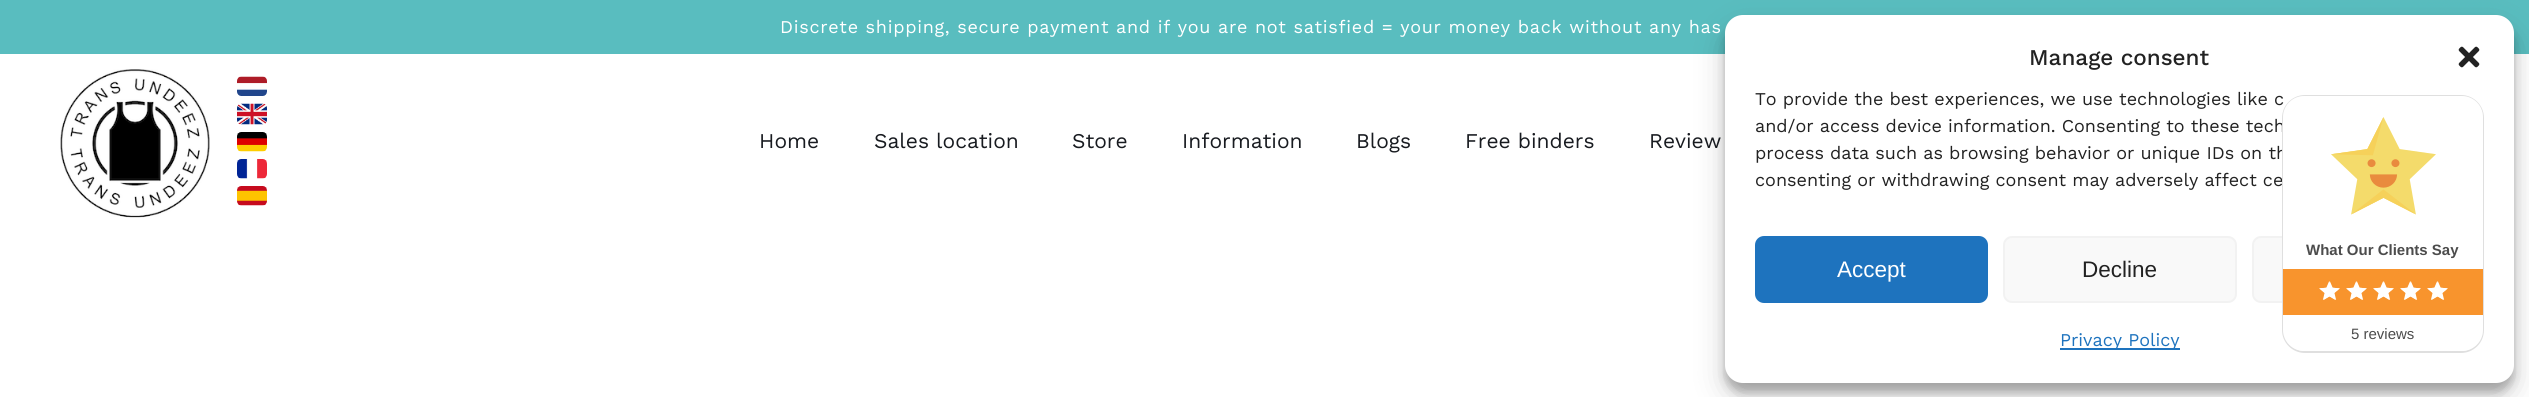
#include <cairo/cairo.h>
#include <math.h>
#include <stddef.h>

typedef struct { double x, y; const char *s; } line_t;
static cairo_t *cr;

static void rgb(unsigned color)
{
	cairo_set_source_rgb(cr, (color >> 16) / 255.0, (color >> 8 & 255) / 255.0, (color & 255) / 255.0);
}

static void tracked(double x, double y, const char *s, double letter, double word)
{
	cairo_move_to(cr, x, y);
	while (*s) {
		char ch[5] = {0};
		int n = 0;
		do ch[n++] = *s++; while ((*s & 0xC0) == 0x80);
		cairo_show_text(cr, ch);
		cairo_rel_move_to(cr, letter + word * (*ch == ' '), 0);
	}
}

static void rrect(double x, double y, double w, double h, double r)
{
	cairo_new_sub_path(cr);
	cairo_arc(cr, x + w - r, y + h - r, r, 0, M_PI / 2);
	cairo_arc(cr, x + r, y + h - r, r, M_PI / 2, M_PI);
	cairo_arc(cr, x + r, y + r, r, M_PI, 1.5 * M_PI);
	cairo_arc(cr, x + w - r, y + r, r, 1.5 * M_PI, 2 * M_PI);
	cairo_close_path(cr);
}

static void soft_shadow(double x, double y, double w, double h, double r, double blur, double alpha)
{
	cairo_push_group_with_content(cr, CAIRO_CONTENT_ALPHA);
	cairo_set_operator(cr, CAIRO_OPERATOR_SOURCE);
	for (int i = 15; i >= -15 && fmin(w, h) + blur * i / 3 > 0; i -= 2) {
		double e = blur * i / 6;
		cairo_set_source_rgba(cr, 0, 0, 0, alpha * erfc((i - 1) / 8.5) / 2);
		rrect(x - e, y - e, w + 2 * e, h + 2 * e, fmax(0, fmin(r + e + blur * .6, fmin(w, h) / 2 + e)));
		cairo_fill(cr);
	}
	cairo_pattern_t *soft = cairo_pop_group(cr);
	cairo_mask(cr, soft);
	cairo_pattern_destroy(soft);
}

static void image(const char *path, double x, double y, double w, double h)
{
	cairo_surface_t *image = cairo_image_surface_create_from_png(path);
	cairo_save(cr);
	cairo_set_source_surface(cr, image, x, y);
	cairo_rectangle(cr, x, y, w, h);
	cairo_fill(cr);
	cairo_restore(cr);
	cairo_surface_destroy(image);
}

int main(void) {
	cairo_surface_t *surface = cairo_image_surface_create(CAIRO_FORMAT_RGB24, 2529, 397);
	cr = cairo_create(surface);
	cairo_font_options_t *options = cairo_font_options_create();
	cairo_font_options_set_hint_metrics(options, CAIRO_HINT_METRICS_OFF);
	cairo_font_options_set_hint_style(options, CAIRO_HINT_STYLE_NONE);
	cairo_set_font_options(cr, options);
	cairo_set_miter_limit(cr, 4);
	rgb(0xffffff);
	cairo_paint(cr);
	rgb(0x59bdbf);
	cairo_rectangle(cr, 0, 0, 2529, 54);
	cairo_fill(cr);
	image("img/1.png", 60, 69, 150, 149);
	image("img/2.png", 237, 76, 30, 20);
	image("img/3.png", 237, 103, 30, 22);
	image("img/4.png", 237, 132, 30, 20);
	image("img/5.png", 237, 159, 30, 20);
	image("img/6.png", 237, 186, 30, 20);
	rgb(0x000000);
	soft_shadow(1725, 24, 789, 368, 18, 4.5, 0.23);
	soft_shadow(1725, 30, 789, 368, 18, 15, 0.19);
	rgb(0xffffff);
	rrect(1725, 15, 789, 368, 18);
	cairo_fill(cr);
	image("img/7.png", 2458, 46, 22, 22);
	rgb(0x1e73be);
	rrect(1756, 237, 231, 65, 8);
	cairo_fill_preserve(cr);
	cairo_stroke(cr);
	rgb(0xf9f9f9);
	rrect(2004, 237, 232, 65, 8);
	cairo_fill_preserve(cr);
	rgb(0xf2f2f2);
	cairo_stroke(cr);
	rgb(0xf9f9f9);
	rrect(2253, 237, 230, 65, 8);
	cairo_fill_preserve(cr);
	rgb(0xf2f2f2);
	cairo_stroke(cr);
	rgb(0x1e73be);
	cairo_rectangle(cr, 2060, 348, 120, 2);
	cairo_fill(cr);
	cairo_select_font_face(cr, "Work Sans", CAIRO_FONT_SLANT_NORMAL, CAIRO_FONT_WEIGHT_NORMAL);
	cairo_set_font_size(cr, 18);
	rgb(0xffffff);
	tracked(780, 33, "Discrete shipping, secure payment and if you are not satisfied = your money back without any has", 0.72, 0);
	cairo_set_font_size(cr, 21);
	rgb(0x181b20);
	{
		static const line_t items[] = {
			{759, 148, "Home"},
			{874, 148, "Sales location"},
			{1072, 148, "Store"},
			{1182, 148, "Information"},
			{1356, 148, "Blogs"},
			{1465, 148, "Free binders"},
			{1649, 148, "Review"},
		};
		for (size_t i = 0; i < sizeof items / sizeof *items; i++) {
			cairo_move_to(cr, items[i].x, items[i].y);
			cairo_show_text(cr, items[i].s);
		}
	}
	cairo_select_font_face(cr, "Work Sans Medium", CAIRO_FONT_SLANT_NORMAL, CAIRO_FONT_WEIGHT_NORMAL);
	cairo_set_font_size(cr, 22.5);
	rgb(0x222222);
	cairo_move_to(cr, 2029, 65);
	cairo_show_text(cr, "Manage consent");
	cairo_select_font_face(cr, "Work Sans", CAIRO_FONT_SLANT_NORMAL, CAIRO_FONT_WEIGHT_NORMAL);
	cairo_set_font_size(cr, 18);
	{
		static const line_t items[] = {
			{1755, 105, "To provide the best experiences, we use technologies like c"},
			{1755, 132, "and/or access device information. Consenting to these tech"},
			{1755, 159, "process data such as browsing behavior or unique IDs on th"},
			{1755, 186, "consenting or withdrawing consent may adversely affect ce"},
		};
		for (size_t i = 0; i < sizeof items / sizeof *items; i++) {
			cairo_move_to(cr, items[i].x, items[i].y);
			cairo_show_text(cr, items[i].s);
		}
	}
	cairo_select_font_face(cr, "Liberation Sans", CAIRO_FONT_SLANT_NORMAL, CAIRO_FONT_WEIGHT_NORMAL);
	cairo_set_font_size(cr, 22.5);
	rgb(0xffffff);
	cairo_move_to(cr, 1837, 277);
	cairo_show_text(cr, "Accept");
	rgb(0x222222);
	cairo_move_to(cr, 2082, 277);
	cairo_show_text(cr, "Decline");
	cairo_select_font_face(cr, "Work Sans", CAIRO_FONT_SLANT_NORMAL, CAIRO_FONT_WEIGHT_NORMAL);
	cairo_set_font_size(cr, 18);
	rgb(0x1e73be);
	cairo_move_to(cr, 2060, 346);
	cairo_show_text(cr, "Privacy Policy");
	rrect(2283, 96, 200, 256, 22);
	rgb(0xdfdfdf);
	cairo_stroke(cr);
	rgb(0xffffff);
	cairo_new_path(cr);
	cairo_move_to(cr, 2304, 96);
	cairo_line_to(cr, 2462, 96);
	cairo_curve_to(cr, 2473.5, 96, 2483, 105.5, 2483, 117);
	cairo_line_to(cr, 2483, 269);
	cairo_line_to(cr, 2283, 269);
	cairo_line_to(cr, 2283, 117);
	cairo_curve_to(cr, 2283, 105.5, 2292.5, 96, 2304, 96);
	cairo_close_path(cr);
	cairo_fill(cr);
	rgb(0xf8942d);
	cairo_rectangle(cr, 2283, 269, 200, 46);
	cairo_fill(cr);
	rgb(0xffffff);
	cairo_new_path(cr);
	cairo_move_to(cr, 2283, 315);
	cairo_line_to(cr, 2483, 315);
	cairo_line_to(cr, 2483, 330);
	cairo_curve_to(cr, 2483, 341.5, 2473.5, 351, 2462, 351);
	cairo_line_to(cr, 2304, 351);
	cairo_curve_to(cr, 2292.5, 351, 2283, 341.5, 2283, 330);
	cairo_close_path(cr);
	cairo_fill(cr);
	image("img/8.png", 2331, 117, 105, 98);
	cairo_select_font_face(cr, "Liberation Sans", CAIRO_FONT_SLANT_NORMAL, CAIRO_FONT_WEIGHT_BOLD);
	cairo_set_font_size(cr, 15);
	rgb(0x4c4c4c);
	cairo_move_to(cr, 2306, 255);
	cairo_show_text(cr, "What Our Clients Say");
	image("img/9.png", 2319, 281, 21, 19);
	image("img/10.png", 2319, 281, 21, 19);
	image("img/9.png", 2346, 281, 21, 19);
	image("img/10.png", 2346, 281, 21, 19);
	image("img/9.png", 2373, 281, 21, 19);
	image("img/10.png", 2373, 281, 21, 19);
	image("img/9.png", 2400, 281, 21, 19);
	image("img/10.png", 2400, 281, 21, 19);
	image("img/9.png", 2427, 281, 21, 19);
	image("img/10.png", 2427, 281, 21, 19);
	cairo_select_font_face(cr, "Liberation Sans", CAIRO_FONT_SLANT_NORMAL, CAIRO_FONT_WEIGHT_NORMAL);
	cairo_move_to(cr, 2351, 339);
	cairo_show_text(cr, "5 reviews");
	cairo_surface_write_to_png(surface, "page.png");
	cairo_font_options_destroy(options);
	cairo_destroy(cr);
	cairo_surface_destroy(surface);
	return 0;
}
